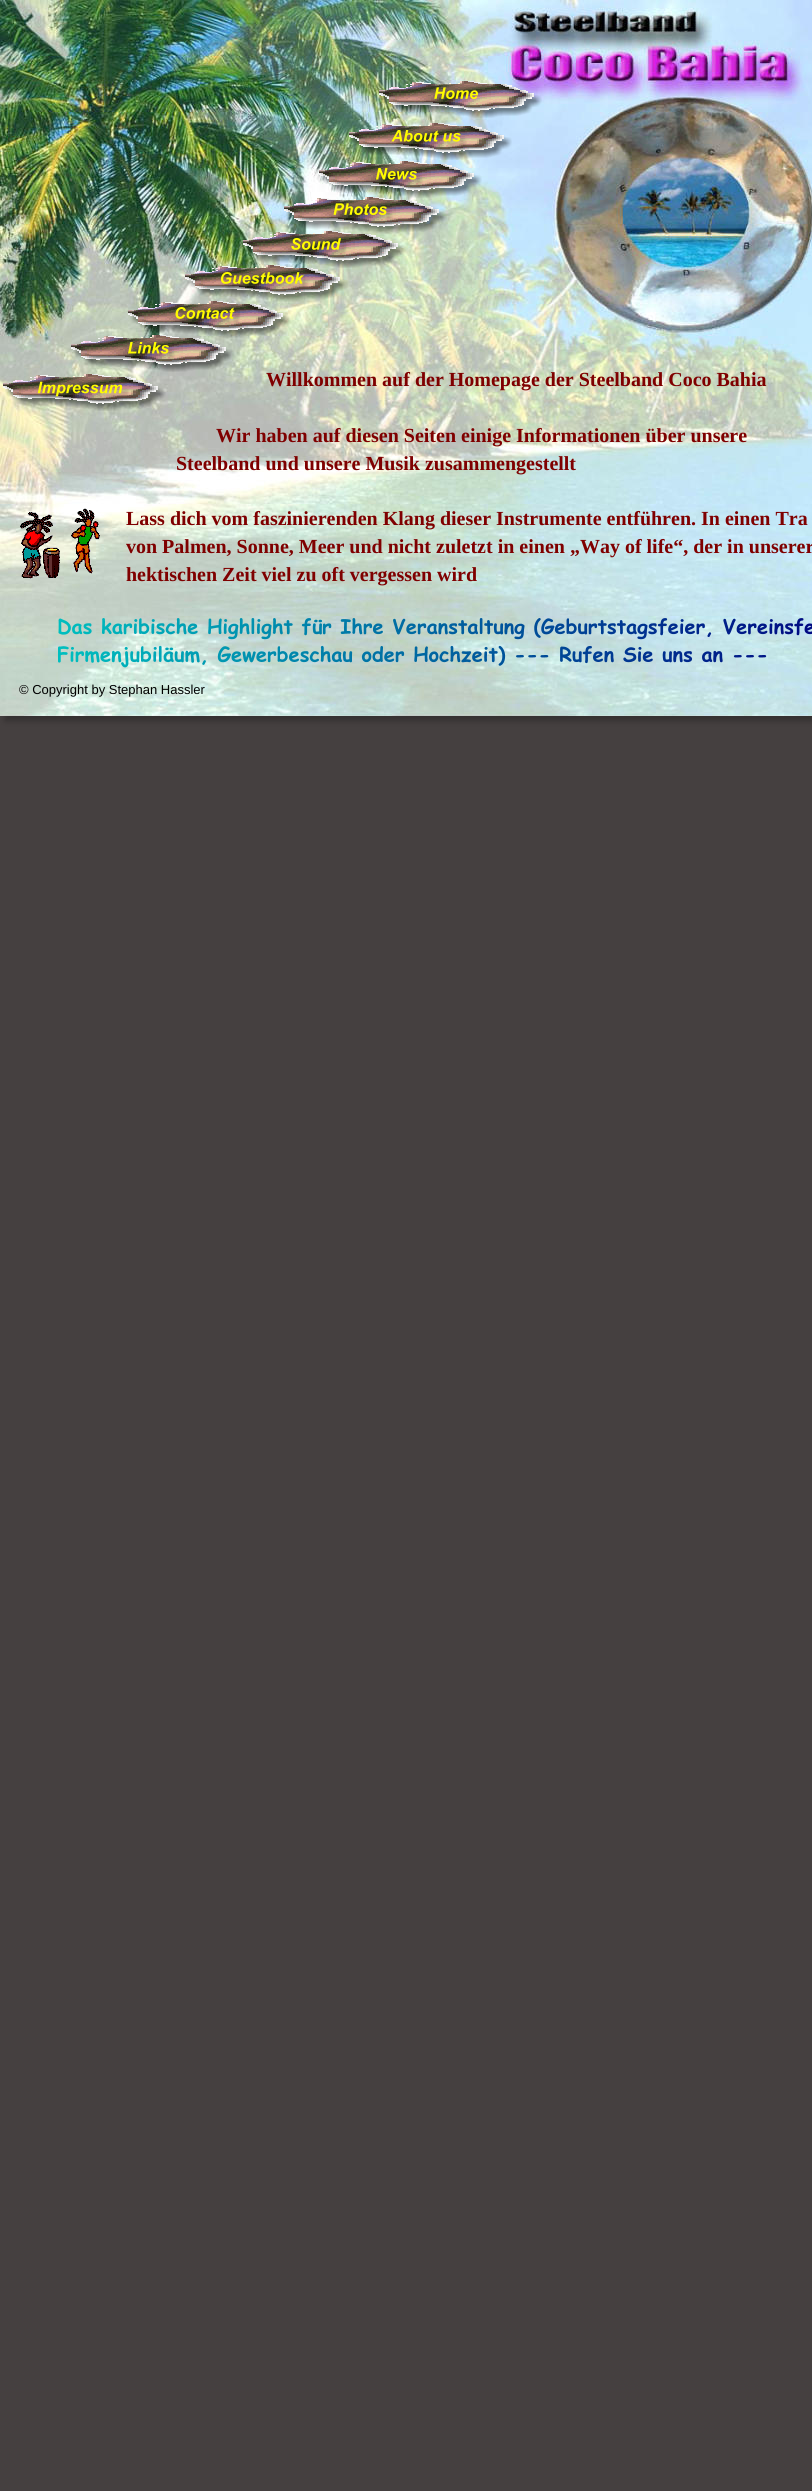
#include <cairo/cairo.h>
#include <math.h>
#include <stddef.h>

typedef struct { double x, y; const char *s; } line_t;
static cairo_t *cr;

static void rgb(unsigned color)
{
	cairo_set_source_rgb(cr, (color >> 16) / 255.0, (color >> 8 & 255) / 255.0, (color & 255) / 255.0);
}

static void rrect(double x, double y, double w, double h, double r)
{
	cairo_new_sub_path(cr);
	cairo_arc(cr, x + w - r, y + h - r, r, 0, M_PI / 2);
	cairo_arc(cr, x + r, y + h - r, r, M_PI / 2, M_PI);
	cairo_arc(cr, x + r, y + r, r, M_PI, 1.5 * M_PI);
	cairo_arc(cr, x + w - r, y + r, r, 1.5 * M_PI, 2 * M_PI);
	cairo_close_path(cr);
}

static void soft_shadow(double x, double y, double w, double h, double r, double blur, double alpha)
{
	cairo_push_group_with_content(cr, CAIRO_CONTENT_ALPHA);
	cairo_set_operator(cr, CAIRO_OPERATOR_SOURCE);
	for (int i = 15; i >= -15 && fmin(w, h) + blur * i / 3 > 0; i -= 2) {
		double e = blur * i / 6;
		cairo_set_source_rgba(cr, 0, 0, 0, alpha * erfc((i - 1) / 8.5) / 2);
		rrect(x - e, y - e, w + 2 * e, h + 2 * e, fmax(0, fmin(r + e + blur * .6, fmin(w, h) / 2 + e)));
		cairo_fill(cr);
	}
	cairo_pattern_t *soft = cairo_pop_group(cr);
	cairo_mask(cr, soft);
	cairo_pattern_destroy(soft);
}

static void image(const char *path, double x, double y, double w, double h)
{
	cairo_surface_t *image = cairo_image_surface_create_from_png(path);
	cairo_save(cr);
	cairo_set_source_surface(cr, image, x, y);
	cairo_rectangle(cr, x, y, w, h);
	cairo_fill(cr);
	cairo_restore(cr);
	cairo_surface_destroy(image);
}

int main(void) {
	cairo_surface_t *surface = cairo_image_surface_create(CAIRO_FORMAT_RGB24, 812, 2491);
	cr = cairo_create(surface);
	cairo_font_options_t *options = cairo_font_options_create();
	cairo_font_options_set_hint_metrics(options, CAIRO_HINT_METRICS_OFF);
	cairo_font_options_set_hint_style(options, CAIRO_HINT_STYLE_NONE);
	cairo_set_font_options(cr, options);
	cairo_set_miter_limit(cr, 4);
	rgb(0x454040);
	cairo_paint(cr);
	rgb(0x000000);
	soft_shadow(5, 5, 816, 716, 0, 3, 0.25);
	image("img/1.png", 0, 0, 812, 716);
	image("img/2.png", 379, 81, 163, 37);
	image("img/3.png", 349, 123, 163, 37);
	image("img/4.png", 319, 161, 163, 37);
	image("img/5.png", 284, 197, 163, 37);
	image("img/6.png", 243, 231, 163, 37);
	image("img/7.png", 185, 265, 163, 37);
	image("img/8.png", 128, 301, 163, 37);
	image("img/9.png", 71, 335, 163, 37);
	image("img/10.png", 3, 374, 163, 37);
	image("img/11.png", 20, 508, 80, 71);
	image("img/12.png", 58, 618, 754, 50);
	cairo_select_font_face(cr, "Liberation Serif", CAIRO_FONT_SLANT_NORMAL, CAIRO_FONT_WEIGHT_BOLD);
	cairo_set_font_size(cr, 20);
	rgb(0x7f0000);
	{
		static const line_t items[] = {
			{266, 386, "Willkommen auf der Homepage der Steelband Coco Bahia"},
			{216, 442, "Wir haben auf diesen Seiten einige Informationen über unsere"},
			{176, 470, "Steelband und unsere Musik zusammengestellt"},
			{126, 525, "Lass dich vom faszinierenden Klang dieser Instrumente entführen. In einen Tra"},
			{126, 553, "von Palmen, Sonne, Meer und nicht zuletzt in einen „Way of life“, der in unserer"},
			{126, 581, "hektischen Zeit viel zu oft vergessen wird"},
		};
		for (size_t i = 0; i < sizeof items / sizeof *items; i++) {
			cairo_move_to(cr, items[i].x, items[i].y);
			cairo_show_text(cr, items[i].s);
		}
	}
	cairo_select_font_face(cr, "Liberation Sans", CAIRO_FONT_SLANT_NORMAL, CAIRO_FONT_WEIGHT_NORMAL);
	cairo_set_font_size(cr, 13);
	rgb(0x000000);
	cairo_move_to(cr, 19, 694);
	cairo_show_text(cr, "© Copyright by Stephan Hassler");
	cairo_surface_write_to_png(surface, "page.png");
	cairo_font_options_destroy(options);
	cairo_destroy(cr);
	cairo_surface_destroy(surface);
	return 0;
}
